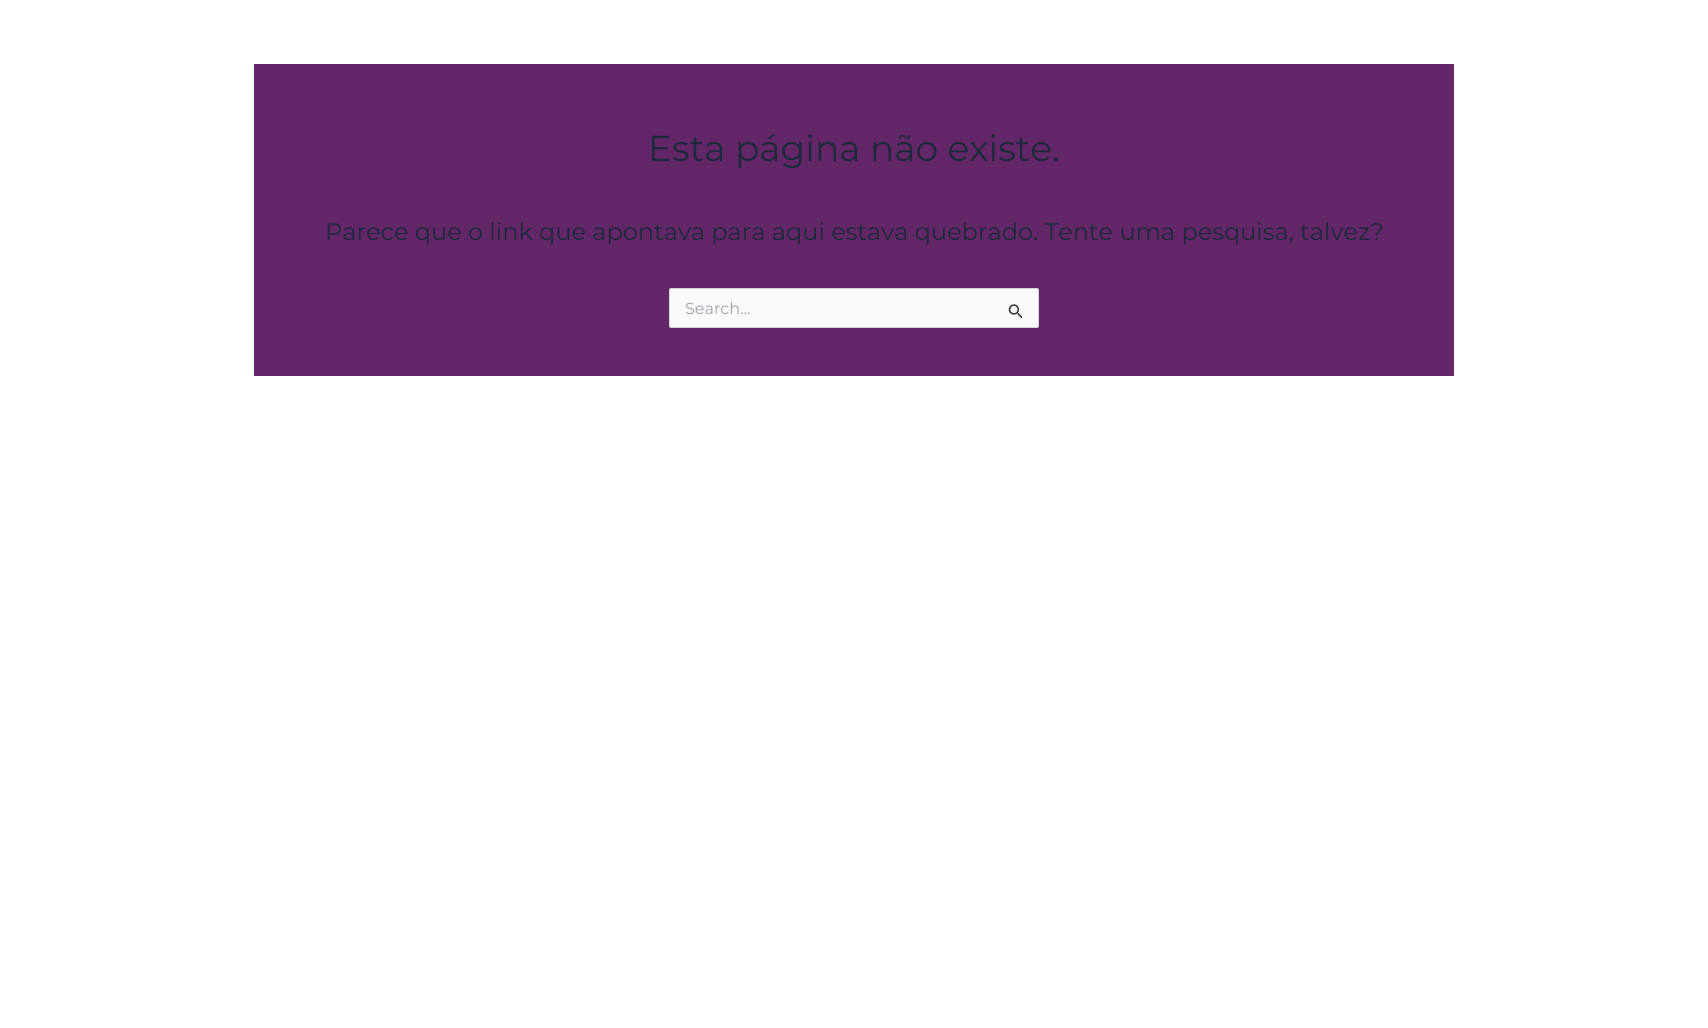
#include <cairo/cairo.h>
#include <math.h>
#include <stddef.h>

static cairo_t *cr;

static void rgb(unsigned color)
{
	cairo_set_source_rgb(cr, (color >> 16) / 255.0, (color >> 8 & 255) / 255.0, (color & 255) / 255.0);
}

static void rrect(double x, double y, double w, double h, double r)
{
	cairo_new_sub_path(cr);
	cairo_arc(cr, x + w - r, y + h - r, r, 0, M_PI / 2);
	cairo_arc(cr, x + r, y + h - r, r, M_PI / 2, M_PI);
	cairo_arc(cr, x + r, y + r, r, M_PI, 1.5 * M_PI);
	cairo_arc(cr, x + w - r, y + r, r, 1.5 * M_PI, 2 * M_PI);
	cairo_close_path(cr);
}

static void image(const char *path, double x, double y, double w, double h)
{
	cairo_surface_t *image = cairo_image_surface_create_from_png(path);
	cairo_save(cr);
	cairo_set_source_surface(cr, image, x, y);
	cairo_rectangle(cr, x, y, w, h);
	cairo_fill(cr);
	cairo_restore(cr);
	cairo_surface_destroy(image);
}

int main(void) {
	cairo_surface_t *surface = cairo_image_surface_create(CAIRO_FORMAT_RGB24, 1708, 1028);
	cr = cairo_create(surface);
	cairo_font_options_t *options = cairo_font_options_create();
	cairo_font_options_set_hint_metrics(options, CAIRO_HINT_METRICS_OFF);
	cairo_font_options_set_hint_style(options, CAIRO_HINT_STYLE_NONE);
	cairo_set_font_options(cr, options);
	cairo_set_miter_limit(cr, 4);
	rgb(0xffffff);
	cairo_paint(cr);
	rgb(0x622669);
	cairo_rectangle(cr, 254, 64, 1200, 312);
	cairo_fill(cr);
	rgb(0xfafafa);
	rrect(669.5, 288.5, 369, 39, 1.5);
	cairo_fill_preserve(cr);
	rgb(0xd1d5db);
	cairo_set_line_width(cr, 1);
	cairo_stroke(cr);
	image("img/1.png", 1008, 304, 14, 15);
	cairo_select_font_face(cr, "Montserrat", CAIRO_FONT_SLANT_NORMAL, CAIRO_FONT_WEIGHT_NORMAL);
	cairo_set_font_size(cr, 36);
	rgb(0x1e293b);
	cairo_move_to(cr, 648, 161);
	cairo_show_text(cr, "Esta página não existe.");
	cairo_set_font_size(cr, 24);
	cairo_move_to(cr, 325, 240);
	cairo_show_text(cr, "Parece que o link que apontava para aqui estava quebrado. Tente uma pesquisa, talvez?");
	cairo_set_font_size(cr, 16);
	rgb(0x9ca3af);
	cairo_move_to(cr, 685, 314);
	cairo_show_text(cr, "Search...");
	cairo_surface_write_to_png(surface, "page.png");
	cairo_font_options_destroy(options);
	cairo_destroy(cr);
	cairo_surface_destroy(surface);
	return 0;
}
